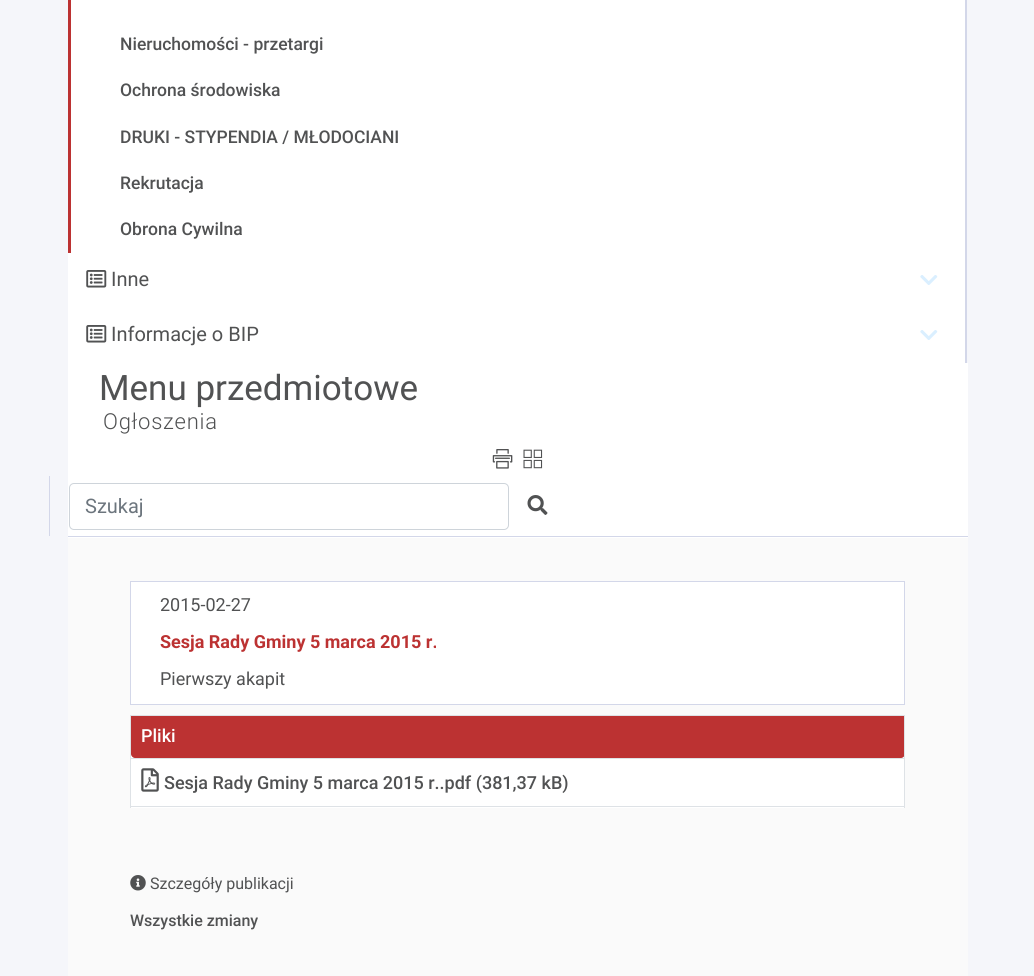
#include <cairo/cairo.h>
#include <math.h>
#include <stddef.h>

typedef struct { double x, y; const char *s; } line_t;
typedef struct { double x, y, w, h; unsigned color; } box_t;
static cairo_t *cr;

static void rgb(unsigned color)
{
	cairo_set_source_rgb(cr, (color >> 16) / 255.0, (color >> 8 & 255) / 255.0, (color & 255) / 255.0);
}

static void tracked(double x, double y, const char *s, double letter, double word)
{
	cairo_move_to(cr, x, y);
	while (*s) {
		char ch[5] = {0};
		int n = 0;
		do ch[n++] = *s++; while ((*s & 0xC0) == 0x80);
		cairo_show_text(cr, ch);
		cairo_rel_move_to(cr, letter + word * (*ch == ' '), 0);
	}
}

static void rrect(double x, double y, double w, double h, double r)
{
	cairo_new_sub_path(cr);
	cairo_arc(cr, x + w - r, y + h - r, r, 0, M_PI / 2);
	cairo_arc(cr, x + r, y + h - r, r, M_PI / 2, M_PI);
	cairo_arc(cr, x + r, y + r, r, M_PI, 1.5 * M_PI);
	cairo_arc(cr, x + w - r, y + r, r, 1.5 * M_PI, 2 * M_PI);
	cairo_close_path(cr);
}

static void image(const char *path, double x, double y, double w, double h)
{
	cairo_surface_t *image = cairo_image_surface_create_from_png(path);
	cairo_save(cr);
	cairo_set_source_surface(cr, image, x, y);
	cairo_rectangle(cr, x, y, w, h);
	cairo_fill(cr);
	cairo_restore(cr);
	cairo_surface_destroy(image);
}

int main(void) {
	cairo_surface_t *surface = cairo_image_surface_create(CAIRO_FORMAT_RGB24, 1034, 976);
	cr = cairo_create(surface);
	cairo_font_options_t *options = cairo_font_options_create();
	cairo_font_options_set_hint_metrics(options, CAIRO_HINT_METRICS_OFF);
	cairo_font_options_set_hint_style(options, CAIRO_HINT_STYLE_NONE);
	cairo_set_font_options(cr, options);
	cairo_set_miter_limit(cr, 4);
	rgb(0xf5f6fa);
	cairo_paint(cr);
	{
		static const box_t items[] = {
			{965, 0, 2, 363, 0xd3d7e9},
			{68, 253, 897, 110, 0xffffff},
			{71, 0, 894, 253, 0xffffff},
			{68, 0, 3, 253, 0xbc3232},
		};
		for (size_t i = 0; i < sizeof items / sizeof *items; i++) {
			rgb(items[i].color);
			cairo_rectangle(cr, items[i].x, items[i].y, items[i].w, items[i].h);
			cairo_fill(cr);
		}
	}
	image("img/1.png", 86, 270, 21, 18);
	image("img/2.png", 920, 275, 18, 10);
	image("img/1.png", 86, 325, 21, 18);
	image("img/2.png", 920, 330, 18, 10);
	{
		static const box_t items[] = {
			{68, 538, 900, 438, 0xfafafa},
			{68, 363, 900, 175, 0xffffff},
			{68, 536, 900, 1, 0xd3d7e9},
		};
		for (size_t i = 0; i < sizeof items / sizeof *items; i++) {
			rgb(items[i].color);
			cairo_rectangle(cr, items[i].x, items[i].y, items[i].w, items[i].h);
			cairo_fill(cr);
		}
	}
	image("img/3.png", 492, 449, 21, 20);
	image("img/4.png", 523, 449, 20, 20);
	cairo_rectangle(cr, 49, 476, 1, 60);
	cairo_fill(cr);
	rrect(69.5, 483.5, 439, 46, 4.5);
	rgb(0xced4da);
	cairo_set_line_width(cr, 1);
	cairo_stroke(cr);
	image("img/5.png", 527, 495, 21, 20);
	rgb(0xffffff);
	cairo_rectangle(cr, 130.5, 581.5, 774, 123);
	cairo_fill_preserve(cr);
	rgb(0xd3d7e9);
	cairo_stroke(cr);
	rgb(0xffffff);
	cairo_rectangle(cr, 131, 754, 773, 54);
	cairo_fill(cr);
	rgb(0xbc3232);
	cairo_new_path(cr);
	cairo_move_to(cr, 131, 715);
	cairo_line_to(cr, 905, 715);
	cairo_line_to(cr, 905, 754);
	cairo_curve_to(cr, 905, 756, 903, 758, 901, 758);
	cairo_line_to(cr, 135, 758);
	cairo_curve_to(cr, 133, 758, 131, 756, 131, 754);
	cairo_close_path(cr);
	cairo_fill(cr);
	{
		static const box_t items[] = {
			{130, 715, 775, 1, 0xdee2e6},
			{130, 758, 775, 1, 0xdee2e6},
			{904, 758, 1, 50, 0xdee2e6},
			{904, 715, 1, 44, 0xdee2e6},
			{130, 806, 775, 1, 0xdee2e6},
			{130, 758, 1, 50, 0xdee2e6},
			{130, 715, 1, 44, 0xdee2e6},
		};
		for (size_t i = 0; i < sizeof items / sizeof *items; i++) {
			rgb(items[i].color);
			cairo_rectangle(cr, items[i].x, items[i].y, items[i].w, items[i].h);
			cairo_fill(cr);
		}
	}
	image("img/6.png", 141, 768, 18, 24);
	image("img/7.png", 130, 875, 16, 16);
	cairo_select_font_face(cr, "Roboto Medium", CAIRO_FONT_SLANT_NORMAL, CAIRO_FONT_WEIGHT_NORMAL);
	cairo_set_font_size(cr, 17.5);
	rgb(0x515253);
	{
		static const line_t items[] = {
			{120, 50, "Nieruchomości - przetargi"},
			{120, 96, "Ochrona środowiska"},
			{120, 143, "DRUKI - STYPENDIA / MŁODOCIANI"},
			{120, 189, "Rekrutacja"},
			{120, 235, "Obrona Cywilna"},
		};
		for (size_t i = 0; i < sizeof items / sizeof *items; i++) {
			cairo_move_to(cr, items[i].x, items[i].y);
			cairo_show_text(cr, items[i].s);
		}
	}
	cairo_select_font_face(cr, "Roboto", CAIRO_FONT_SLANT_NORMAL, CAIRO_FONT_WEIGHT_NORMAL);
	cairo_set_font_size(cr, 20);
	cairo_move_to(cr, 111, 286);
	cairo_show_text(cr, "Inne");
	cairo_move_to(cr, 111, 341);
	cairo_show_text(cr, "Informacje o BIP");
	cairo_set_font_size(cr, 35);
	cairo_move_to(cr, 99, 400);
	cairo_show_text(cr, "Menu przedmiotowe");
	cairo_select_font_face(cr, "Roboto Light", CAIRO_FONT_SLANT_NORMAL, CAIRO_FONT_WEIGHT_NORMAL);
	cairo_set_font_size(cr, 22);
	tracked(103, 429, "Ogłoszenia", 0.75, 0);
	cairo_select_font_face(cr, "Roboto", CAIRO_FONT_SLANT_NORMAL, CAIRO_FONT_WEIGHT_NORMAL);
	cairo_set_font_size(cr, 20);
	rgb(0x6c757d);
	cairo_move_to(cr, 85, 513);
	cairo_show_text(cr, "Szukaj");
	cairo_set_font_size(cr, 18);
	rgb(0x515253);
	cairo_move_to(cr, 160, 611);
	cairo_show_text(cr, "2015-02-27");
	cairo_select_font_face(cr, "Roboto", CAIRO_FONT_SLANT_NORMAL, CAIRO_FONT_WEIGHT_BOLD);
	rgb(0xbc3232);
	cairo_move_to(cr, 160, 648);
	cairo_show_text(cr, "Sesja Rady Gminy 5 marca 2015 r.");
	cairo_select_font_face(cr, "Roboto", CAIRO_FONT_SLANT_NORMAL, CAIRO_FONT_WEIGHT_NORMAL);
	rgb(0x515253);
	cairo_move_to(cr, 160, 685);
	cairo_show_text(cr, "Pierwszy akapit");
	cairo_select_font_face(cr, "Roboto Medium", CAIRO_FONT_SLANT_NORMAL, CAIRO_FONT_WEIGHT_NORMAL);
	rgb(0xffffff);
	cairo_move_to(cr, 141, 742);
	cairo_show_text(cr, "Pliki");
	rgb(0x515253);
	cairo_move_to(cr, 164, 789);
	cairo_show_text(cr, "Sesja Rady Gminy 5 marca 2015 r..pdf (381,37 kB)");
	cairo_select_font_face(cr, "Roboto", CAIRO_FONT_SLANT_NORMAL, CAIRO_FONT_WEIGHT_NORMAL);
	cairo_set_font_size(cr, 16);
	cairo_move_to(cr, 150, 889);
	cairo_show_text(cr, "Szczegóły publikacji");
	cairo_select_font_face(cr, "Roboto Medium", CAIRO_FONT_SLANT_NORMAL, CAIRO_FONT_WEIGHT_NORMAL);
	cairo_move_to(cr, 130, 926);
	cairo_show_text(cr, "Wszystkie zmiany");
	cairo_surface_write_to_png(surface, "page.png");
	cairo_font_options_destroy(options);
	cairo_destroy(cr);
	cairo_surface_destroy(surface);
	return 0;
}
